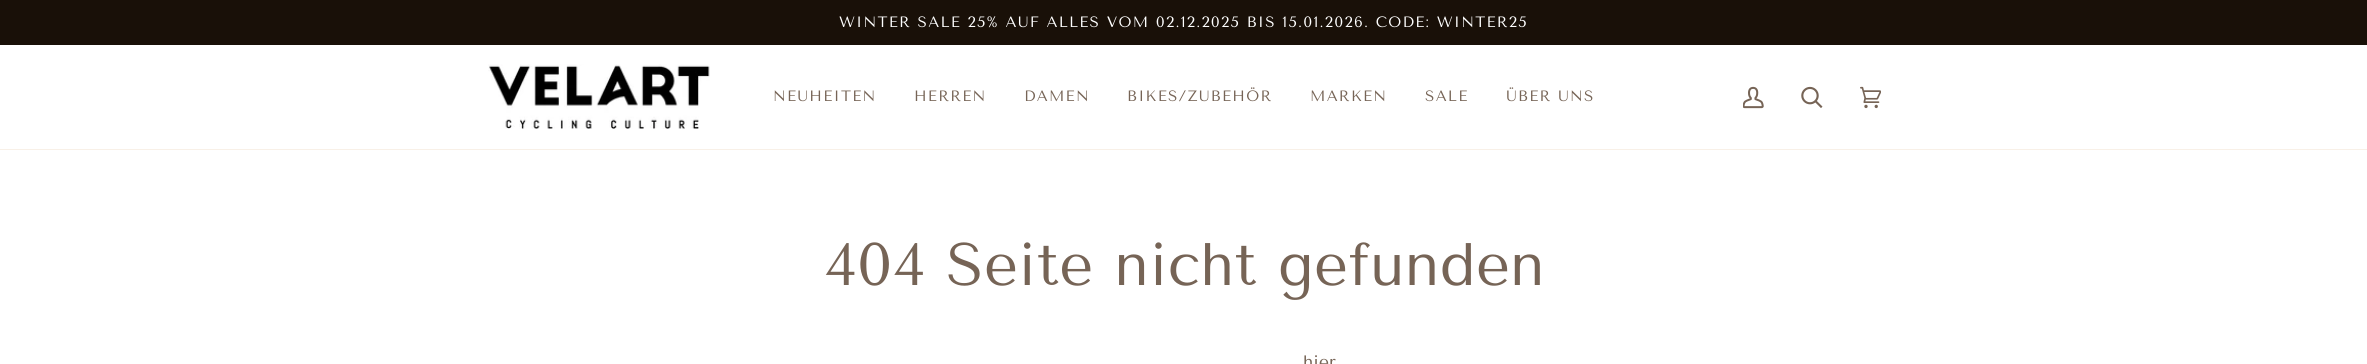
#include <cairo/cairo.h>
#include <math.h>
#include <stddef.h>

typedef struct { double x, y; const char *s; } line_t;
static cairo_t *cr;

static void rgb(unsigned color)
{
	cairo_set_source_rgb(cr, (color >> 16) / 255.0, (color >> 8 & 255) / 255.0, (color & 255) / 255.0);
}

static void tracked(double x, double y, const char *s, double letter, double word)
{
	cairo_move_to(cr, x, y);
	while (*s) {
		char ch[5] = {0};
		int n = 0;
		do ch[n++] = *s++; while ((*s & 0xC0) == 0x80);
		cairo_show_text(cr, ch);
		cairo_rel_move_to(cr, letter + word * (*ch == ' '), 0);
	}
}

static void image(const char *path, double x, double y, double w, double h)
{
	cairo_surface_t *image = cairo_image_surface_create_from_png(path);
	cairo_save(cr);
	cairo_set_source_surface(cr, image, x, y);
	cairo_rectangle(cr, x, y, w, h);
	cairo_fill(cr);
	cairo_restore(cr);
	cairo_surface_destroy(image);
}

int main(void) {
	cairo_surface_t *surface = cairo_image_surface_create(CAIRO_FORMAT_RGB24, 2367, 364);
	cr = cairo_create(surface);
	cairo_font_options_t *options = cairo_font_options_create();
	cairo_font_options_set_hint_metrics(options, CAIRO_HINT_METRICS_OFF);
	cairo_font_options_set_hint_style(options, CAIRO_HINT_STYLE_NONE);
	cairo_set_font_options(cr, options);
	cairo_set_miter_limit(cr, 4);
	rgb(0xffffff);
	cairo_paint(cr);
	rgb(0x191008);
	cairo_rectangle(cr, 0, 0, 2367, 45);
	cairo_fill(cr);
	rgb(0xf8f0e7);
	cairo_rectangle(cr, 0, 149, 2367, 1);
	cairo_fill(cr);
	image("img/1.png", 488, 64, 222, 65);
	image("img/2.png", 1743, 86, 21, 23);
	image("img/3.png", 1801, 86, 22, 22);
	image("img/4.png", 1860, 86, 21, 23);
	cairo_select_font_face(cr, "Tenor Sans", CAIRO_FONT_SLANT_NORMAL, CAIRO_FONT_WEIGHT_NORMAL);
	cairo_set_font_size(cr, 15);
	rgb(0xffffff);
	tracked(839, 27, "WINTER SALE 25% AUF ALLES VOM 02.12.2025 BIS 15.01.2026. CODE: WINTER25", 1.25, 0);
	rgb(0x766456);
	{
		static const line_t items[] = {
			{773, 101, "NEUHEITEN"},
			{914, 101, "HERREN"},
			{1024, 101, "DAMEN"},
			{1127, 101, "BIKES/ZUBEHÖR"},
			{1310, 101, "MARKEN"},
			{1425, 101, "SALE"},
			{1506, 101, "ÜBER UNS"},
		};
		for (size_t i = 0; i < sizeof items / sizeof *items; i++) {
			tracked(items[i].x, items[i].y, items[i].s, 1.25, 0);
		}
	}
	cairo_set_font_size(cr, 59.9);
	cairo_move_to(cr, 824, 285);
	cairo_show_text(cr, "404 Seite nicht gefunden");
	cairo_set_font_size(cr, 18);
	cairo_move_to(cr, 1303, 368);
	cairo_show_text(cr, "hier");
	cairo_surface_write_to_png(surface, "page.png");
	cairo_font_options_destroy(options);
	cairo_destroy(cr);
	cairo_surface_destroy(surface);
	return 0;
}
